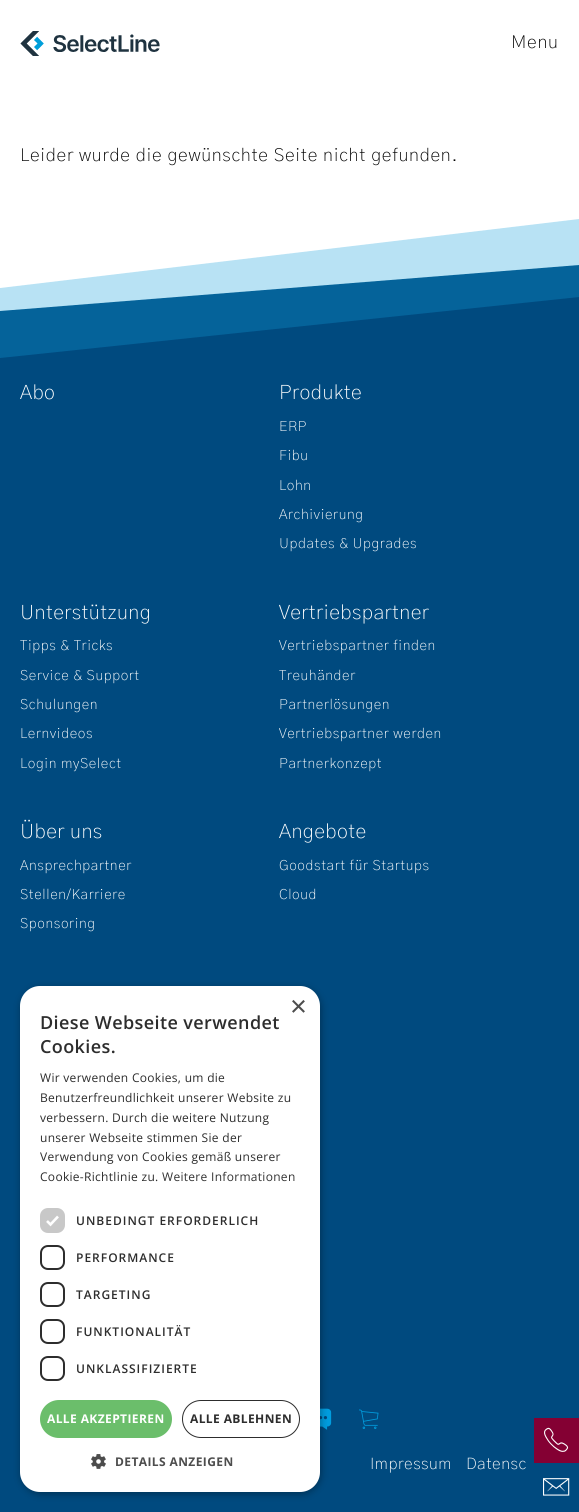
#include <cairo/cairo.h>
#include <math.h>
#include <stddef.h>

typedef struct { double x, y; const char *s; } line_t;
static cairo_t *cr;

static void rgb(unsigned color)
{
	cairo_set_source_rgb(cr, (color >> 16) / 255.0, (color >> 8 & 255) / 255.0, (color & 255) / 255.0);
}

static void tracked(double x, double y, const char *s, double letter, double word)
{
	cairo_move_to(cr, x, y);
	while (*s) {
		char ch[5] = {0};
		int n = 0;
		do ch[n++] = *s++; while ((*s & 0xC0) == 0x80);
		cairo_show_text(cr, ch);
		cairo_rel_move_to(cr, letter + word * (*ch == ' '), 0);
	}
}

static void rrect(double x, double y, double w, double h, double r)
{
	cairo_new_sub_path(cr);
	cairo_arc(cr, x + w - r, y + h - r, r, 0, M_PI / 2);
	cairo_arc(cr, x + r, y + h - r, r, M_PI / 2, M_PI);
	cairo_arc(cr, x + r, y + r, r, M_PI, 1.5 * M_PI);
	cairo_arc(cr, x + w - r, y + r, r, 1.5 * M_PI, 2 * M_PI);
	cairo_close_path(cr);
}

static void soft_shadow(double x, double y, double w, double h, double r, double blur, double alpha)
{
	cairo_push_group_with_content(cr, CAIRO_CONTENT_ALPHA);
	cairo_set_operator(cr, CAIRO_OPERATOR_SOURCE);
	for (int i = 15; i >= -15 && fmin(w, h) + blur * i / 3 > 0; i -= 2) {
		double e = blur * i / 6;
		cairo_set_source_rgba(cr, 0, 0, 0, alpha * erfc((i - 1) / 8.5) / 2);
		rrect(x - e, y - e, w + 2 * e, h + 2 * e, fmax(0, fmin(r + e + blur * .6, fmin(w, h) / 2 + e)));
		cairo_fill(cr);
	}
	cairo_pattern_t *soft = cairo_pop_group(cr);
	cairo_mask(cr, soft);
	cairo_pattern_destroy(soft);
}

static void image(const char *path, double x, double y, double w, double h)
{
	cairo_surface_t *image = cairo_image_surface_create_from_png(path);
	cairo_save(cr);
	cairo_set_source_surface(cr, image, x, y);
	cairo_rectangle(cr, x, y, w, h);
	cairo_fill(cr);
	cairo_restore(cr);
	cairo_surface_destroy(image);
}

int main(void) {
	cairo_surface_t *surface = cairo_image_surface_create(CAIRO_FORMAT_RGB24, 579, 1512);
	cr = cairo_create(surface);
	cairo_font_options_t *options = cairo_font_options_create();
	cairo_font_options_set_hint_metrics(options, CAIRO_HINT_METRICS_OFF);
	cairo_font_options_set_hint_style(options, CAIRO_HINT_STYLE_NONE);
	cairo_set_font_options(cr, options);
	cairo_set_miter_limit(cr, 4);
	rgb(0xffffff);
	cairo_paint(cr);
	image("img/1.png", 20, 31, 140, 25);
	rgb(0x004a7f);
	cairo_rectangle(cr, 0, 265, 579, 1247);
	cairo_fill(cr);
	rgb(0xffffff);
	cairo_new_path(cr);
	cairo_move_to(cr, 0, 265);
	cairo_line_to(cr, 579, 265);
	cairo_line_to(cr, 0, 311);
	cairo_close_path(cr);
	cairo_fill(cr);
	cairo_set_source_rgba(cr, 0.071, 0.612, 0.847, 0.3);
	cairo_set_fill_rule(cr, CAIRO_FILL_RULE_EVEN_ODD);
	cairo_new_path(cr);
	cairo_move_to(cr, 579, 219);
	cairo_line_to(cr, 0, 288);
	cairo_line_to(cr, 0, 358);
	cairo_line_to(cr, 579, 297);
	cairo_close_path(cr);
	cairo_fill(cr);
	image("img/2.png", 320, 1408, 12, 22);
	image("img/3.png", 359, 1409, 20, 20);
	rgb(0x000000);
	soft_shadow(21, 988, 300, 506, 20, 4, 0.35);
	rgb(0xffffff);
	rrect(20, 986, 300, 506, 20);
	cairo_fill(cr);
	rgb(0xc8c8c8);
	rrect(40, 1208, 25, 25, 8);
	cairo_fill(cr);
	cairo_new_path(cr);
	cairo_move_to(cr, 47, 1221);
	cairo_line_to(cr, 50.5, 1224.5);
	cairo_line_to(cr, 58, 1216.5);
	rgb(0xffffff);
	cairo_set_line_width(cr, 2.6);
	cairo_stroke(cr);
	rrect(41, 1246, 23, 23, 7);
	rgb(0x2d2d2d);
	cairo_set_line_width(cr, 2);
	cairo_stroke(cr);
	rrect(41, 1283, 23, 23, 7);
	cairo_stroke(cr);
	rrect(41, 1320, 23, 23, 7);
	cairo_stroke(cr);
	rrect(41, 1357, 23, 23, 7);
	cairo_stroke(cr);
	rgb(0x6bbe6b);
	rrect(40, 1400, 132, 38, 19);
	cairo_fill(cr);
	rrect(182.5, 1400.5, 117, 37, 18.5);
	rgb(0x2d2d2d);
	cairo_set_line_width(cr, 1);
	cairo_stroke(cr);
	image("img/4.png", 91, 1454, 15, 15);
	rgb(0x840033);
	cairo_rectangle(cr, 534, 1418, 45, 45);
	cairo_fill(cr);
	image("img/5.png", 544, 1427, 25, 25);
	image("img/6.png", 543, 1478, 27, 18);
	cairo_select_font_face(cr, "Gothic A1 Light", CAIRO_FONT_SLANT_NORMAL, CAIRO_FONT_WEIGHT_NORMAL);
	cairo_set_font_size(cr, 18);
	rgb(0x000000);
	tracked(511, 48, "Menu", 0.7, 0);
	tracked(20, 161, "Leider wurde die gewünschte Seite nicht gefunden.", 0.7, 0);
	cairo_set_font_size(cr, 20);
	rgb(0xffffff);
	tracked(20, 399, "Abo", 0.4, 0);
	tracked(279, 399, "Produkte", 0.4, 0);
	cairo_set_font_size(cr, 14);
	{
		static const line_t items[] = {
			{279, 431, "ERP"},
			{279, 460, "Fibu"},
			{279, 490, "Lohn"},
			{279, 519, "Archivierung"},
			{279, 548, "Updates & Upgrades"},
		};
		for (size_t i = 0; i < sizeof items / sizeof *items; i++) {
			tracked(items[i].x, items[i].y, items[i].s, 0.6, 0);
		}
	}
	cairo_set_font_size(cr, 20);
	tracked(20, 619, "Unterstützung", 0.4, 0);
	cairo_set_font_size(cr, 14);
	{
		static const line_t items[] = {
			{20, 650, "Tipps & Tricks"},
			{20, 680, "Service & Support"},
			{20, 709, "Schulungen"},
			{20, 738, "Lernvideos"},
			{20, 768, "Login mySelect"},
		};
		for (size_t i = 0; i < sizeof items / sizeof *items; i++) {
			tracked(items[i].x, items[i].y, items[i].s, 0.6, 0);
		}
	}
	cairo_set_font_size(cr, 20);
	tracked(279, 619, "Vertriebspartner", 0.4, 0);
	cairo_set_font_size(cr, 14);
	{
		static const line_t items[] = {
			{279, 650, "Vertriebspartner finden"},
			{279, 680, "Treuhänder"},
			{279, 709, "Partnerlösungen"},
			{279, 738, "Vertriebspartner werden"},
			{279, 768, "Partnerkonzept"},
		};
		for (size_t i = 0; i < sizeof items / sizeof *items; i++) {
			tracked(items[i].x, items[i].y, items[i].s, 0.6, 0);
		}
	}
	cairo_set_font_size(cr, 20);
	tracked(20, 838, "Über uns", 0.4, 0);
	cairo_set_font_size(cr, 14);
	{
		static const line_t items[] = {
			{20, 870, "Ansprechpartner"},
			{20, 899, "Stellen/Karriere"},
			{20, 928, "Sponsoring"},
		};
		for (size_t i = 0; i < sizeof items / sizeof *items; i++) {
			tracked(items[i].x, items[i].y, items[i].s, 0.6, 0);
		}
	}
	cairo_set_font_size(cr, 20);
	tracked(279, 838, "Angebote", 0.4, 0);
	cairo_set_font_size(cr, 14);
	tracked(279, 870, "Goodstart für Startups", 0.6, 0);
	tracked(279, 899, "Cloud", 0.6, 0);
	cairo_set_font_size(cr, 16);
	tracked(370, 1469, "Impressum", 0.5, 0);
	tracked(466, 1469, "Datensc", 0.5, 0);
	cairo_select_font_face(cr, "Liberation Sans", CAIRO_FONT_SLANT_NORMAL, CAIRO_FONT_WEIGHT_NORMAL);
	cairo_set_font_size(cr, 29);
	rgb(0x4d4d4d);
	cairo_move_to(cr, 290, 1016);
	cairo_show_text(cr, "×");
	cairo_select_font_face(cr, "Open Sans SemiBold", CAIRO_FONT_SLANT_NORMAL, CAIRO_FONT_WEIGHT_NORMAL);
	cairo_set_font_size(cr, 18);
	rgb(0x2d2d2d);
	tracked(40, 1029, "Diese Webseite verwendet", 0.4, 0);
	tracked(40, 1053, "Cookies.", 0.4, 0);
	cairo_select_font_face(cr, "Open Sans", CAIRO_FONT_SLANT_NORMAL, CAIRO_FONT_WEIGHT_NORMAL);
	cairo_set_font_size(cr, 12);
	{
		static const line_t items[] = {
			{40, 1082, "Wir verwenden Cookies, um die"},
			{40, 1102, "Benutzerfreundlichkeit unserer Website zu"},
			{40, 1122, "verbessern. Durch die weitere Nutzung"},
			{40, 1142, "unserer Webseite stimmen Sie der"},
			{40, 1161, "Verwendung von Cookies gemäß unserer"},
			{40, 1181, "Cookie-Richtlinie zu."},
		};
		for (size_t i = 0; i < sizeof items / sizeof *items; i++) {
			tracked(items[i].x, items[i].y, items[i].s, 0.3, 0);
		}
	}
	rgb(0x333333);
	tracked(162, 1181, "Weitere Informationen", 0.3, 0);
	cairo_select_font_face(cr, "Open Sans SemiBold", CAIRO_FONT_SLANT_NORMAL, CAIRO_FONT_WEIGHT_NORMAL);
	rgb(0x2d2d2d);
	{
		static const line_t items[] = {
			{76, 1225, "UNBEDINGT ERFORDERLICH"},
			{76, 1262, "PERFORMANCE"},
			{76, 1299, "TARGETING"},
			{76, 1336, "FUNKTIONALITÄT"},
			{76, 1373, "UNKLASSIFIZIERTE"},
		};
		for (size_t i = 0; i < sizeof items / sizeof *items; i++) {
			tracked(items[i].x, items[i].y, items[i].s, 1, 0);
		}
	}
	cairo_select_font_face(cr, "Open Sans", CAIRO_FONT_SLANT_NORMAL, CAIRO_FONT_WEIGHT_BOLD);
	rgb(0xffffff);
	tracked(47, 1423, "ALLE AKZEPTIEREN", 0.4, 0);
	rgb(0x2d2d2d);
	tracked(190, 1423, "ALLE ABLEHNEN", 0.4, 0);
	rgb(0x4d4d4d);
	tracked(115, 1466, "DETAILS ANZEIGEN", 0.4, 0);
	cairo_surface_write_to_png(surface, "page.png");
	cairo_font_options_destroy(options);
	cairo_destroy(cr);
	cairo_surface_destroy(surface);
	return 0;
}
